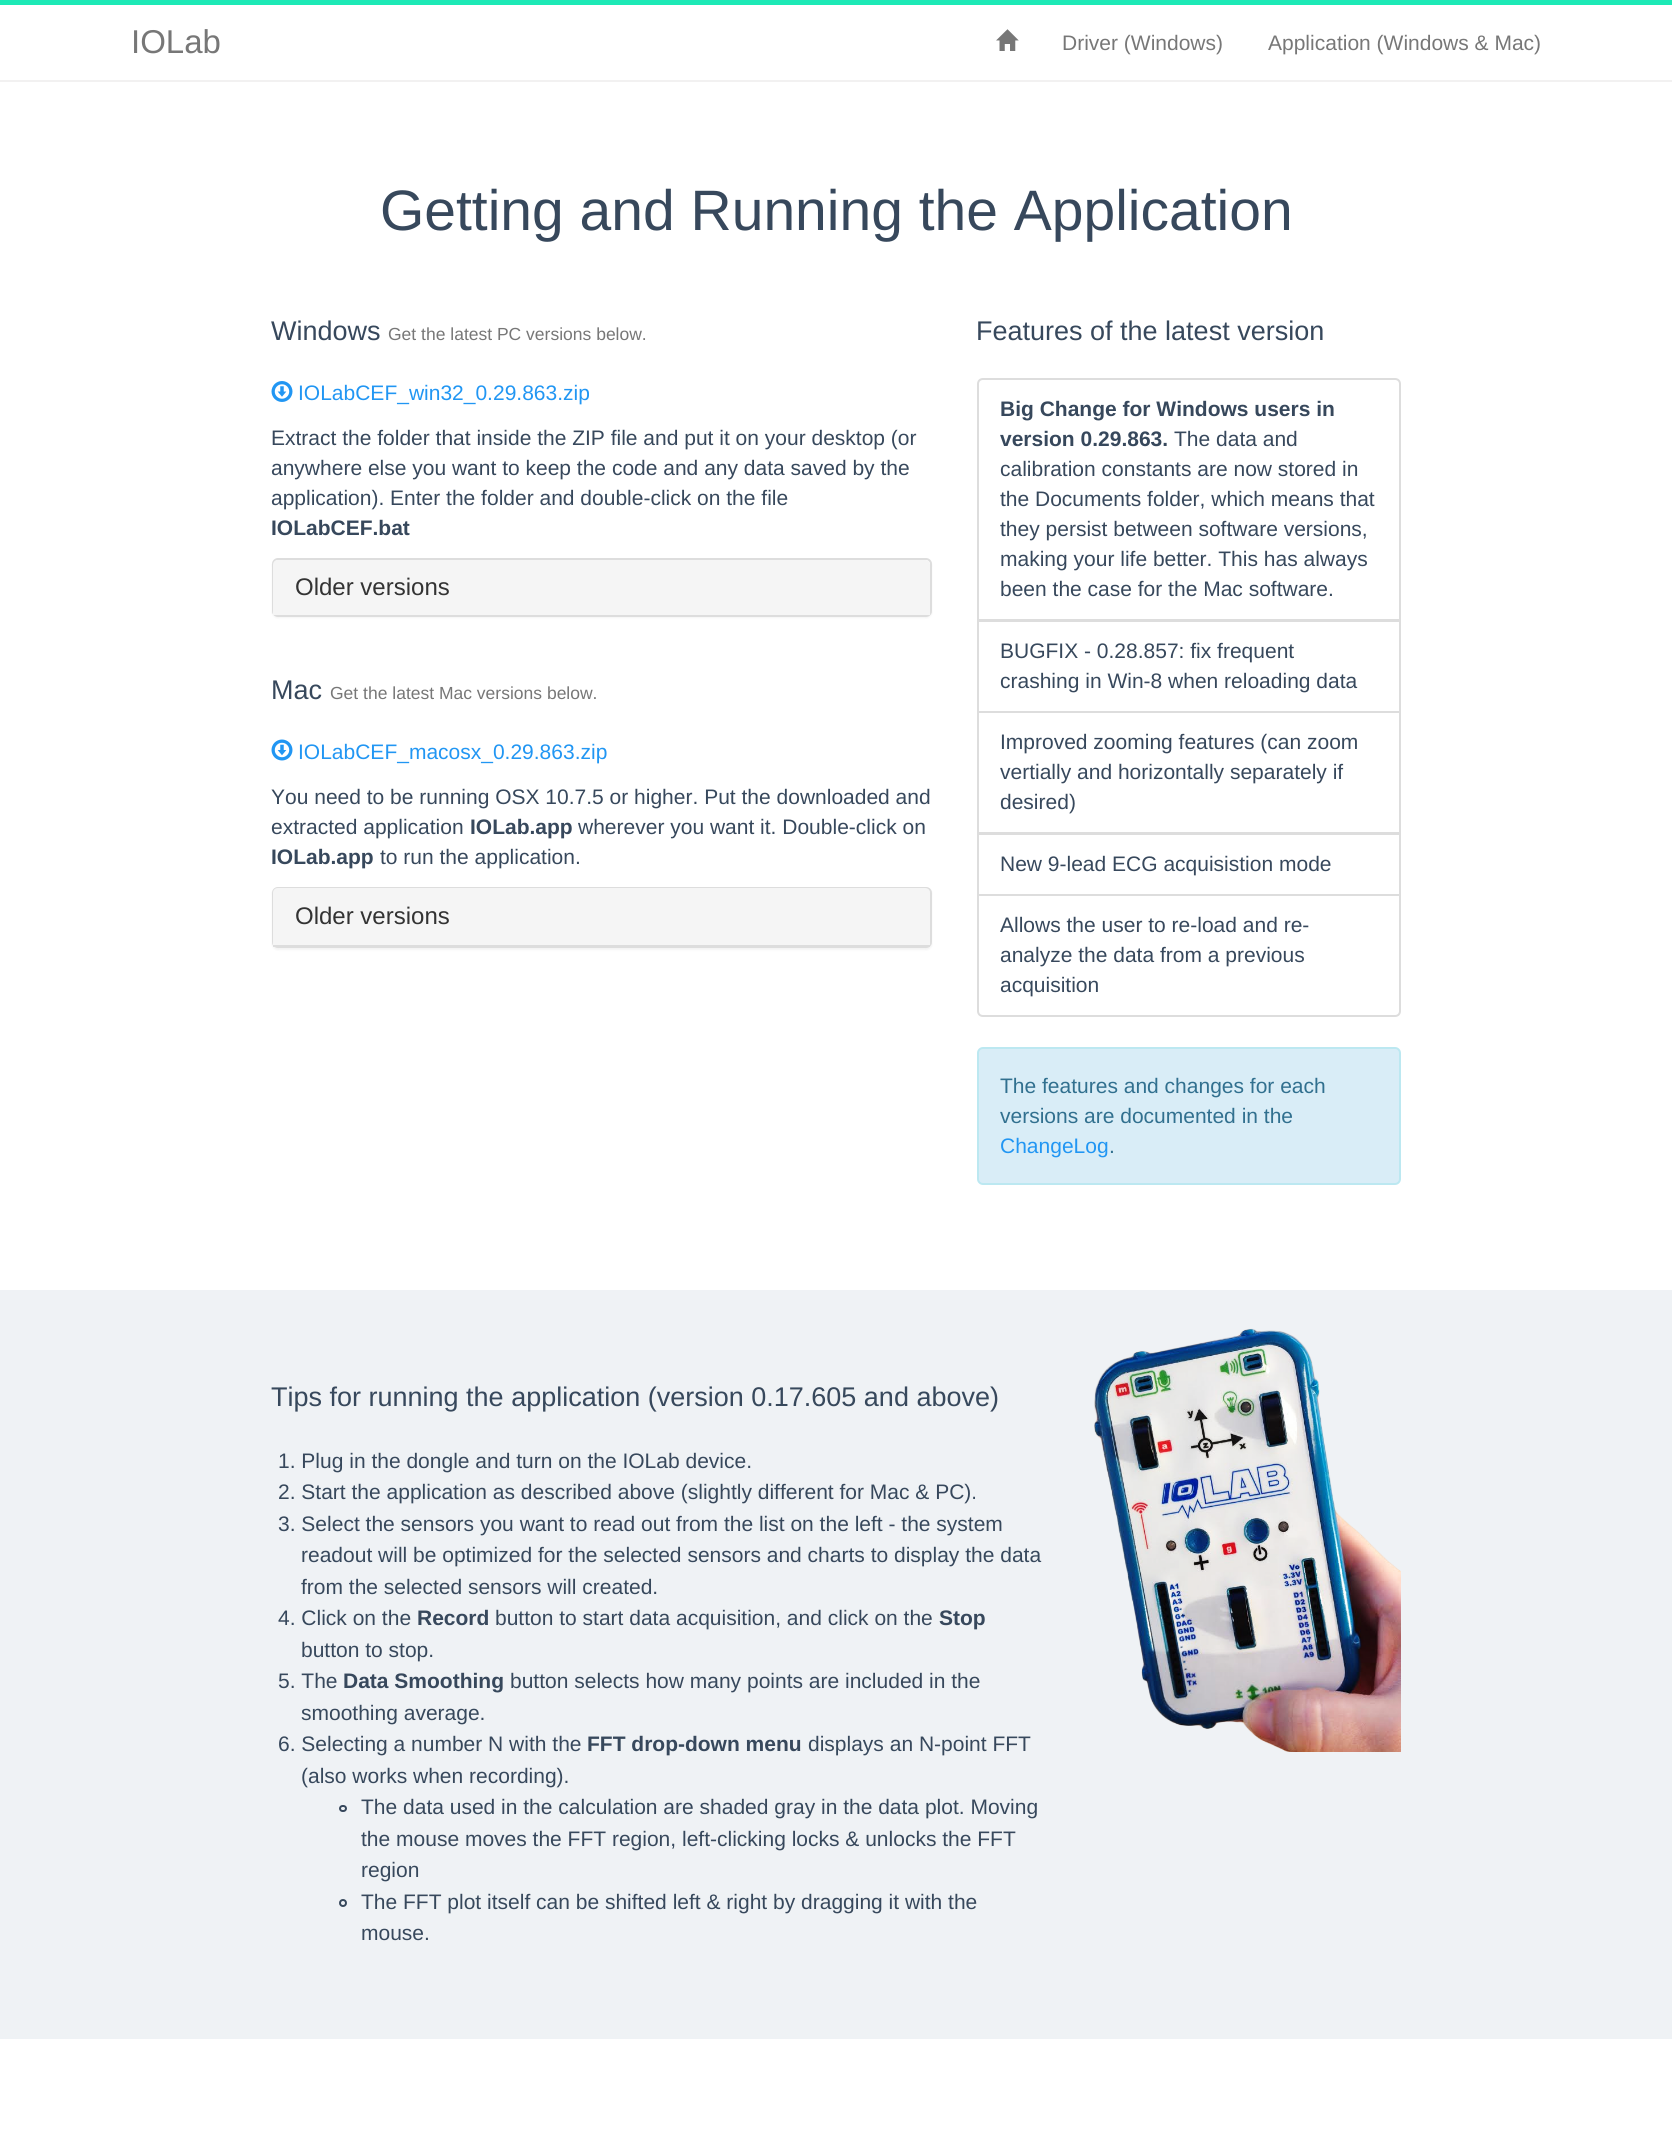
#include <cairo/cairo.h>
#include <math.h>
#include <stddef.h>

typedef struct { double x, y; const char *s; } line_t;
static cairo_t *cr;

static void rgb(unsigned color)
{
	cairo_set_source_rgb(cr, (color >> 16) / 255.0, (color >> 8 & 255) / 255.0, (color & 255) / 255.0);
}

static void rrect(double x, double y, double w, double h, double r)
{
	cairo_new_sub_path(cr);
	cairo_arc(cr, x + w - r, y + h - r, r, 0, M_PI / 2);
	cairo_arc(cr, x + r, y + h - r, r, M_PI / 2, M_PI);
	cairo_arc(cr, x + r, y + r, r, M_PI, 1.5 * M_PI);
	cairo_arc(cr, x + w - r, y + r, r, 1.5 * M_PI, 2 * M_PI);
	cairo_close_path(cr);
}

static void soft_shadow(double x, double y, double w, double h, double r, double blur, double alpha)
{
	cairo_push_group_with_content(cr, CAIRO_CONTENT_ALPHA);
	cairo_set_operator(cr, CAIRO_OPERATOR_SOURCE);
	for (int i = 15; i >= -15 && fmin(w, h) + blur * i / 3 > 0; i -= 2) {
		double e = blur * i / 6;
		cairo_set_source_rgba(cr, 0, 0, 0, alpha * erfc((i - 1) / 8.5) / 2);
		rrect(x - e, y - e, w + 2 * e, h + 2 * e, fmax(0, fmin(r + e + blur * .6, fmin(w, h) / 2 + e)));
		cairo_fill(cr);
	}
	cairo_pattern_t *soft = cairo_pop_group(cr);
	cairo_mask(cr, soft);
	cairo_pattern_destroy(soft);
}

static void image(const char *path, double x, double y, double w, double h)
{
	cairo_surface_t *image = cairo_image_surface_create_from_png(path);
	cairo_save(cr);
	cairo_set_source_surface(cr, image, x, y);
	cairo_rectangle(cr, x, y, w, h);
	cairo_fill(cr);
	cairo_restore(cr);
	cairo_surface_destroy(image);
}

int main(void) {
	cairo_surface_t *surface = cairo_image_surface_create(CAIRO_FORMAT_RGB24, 1672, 2141);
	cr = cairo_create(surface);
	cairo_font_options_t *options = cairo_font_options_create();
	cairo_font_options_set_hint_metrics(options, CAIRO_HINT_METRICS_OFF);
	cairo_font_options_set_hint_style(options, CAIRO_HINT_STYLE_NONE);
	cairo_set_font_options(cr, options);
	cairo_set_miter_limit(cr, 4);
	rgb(0xffffff);
	cairo_paint(cr);
	rgb(0x1de9b6);
	cairo_rectangle(cr, 0, 0, 1672, 5);
	cairo_fill(cr);
	rgb(0xf2f1f1);
	cairo_rectangle(cr, 0, 80, 1672, 2);
	cairo_fill(cr);
	image("img/1.png", 996, 29, 23, 22);
	image("img/2.png", 271, 381, 22, 21);
	rgb(0x000000);
	soft_shadow(272, 560, 660, 58, 6, 1, 0.05);
	rgb(0xffffff);
	rrect(273, 559, 658, 57, 5);
	cairo_fill_preserve(cr);
	rgb(0xdddddd);
	cairo_stroke(cr);
	rgb(0xf5f5f5);
	cairo_new_path(cr);
	cairo_move_to(cr, 278, 560);
	cairo_line_to(cr, 925, 560);
	cairo_curve_to(cr, 928, 560, 930, 562, 930, 565);
	cairo_line_to(cr, 930, 615);
	cairo_line_to(cr, 273, 615);
	cairo_line_to(cr, 273, 565);
	cairo_curve_to(cr, 273, 562, 275, 560, 278, 560);
	cairo_close_path(cr);
	cairo_fill(cr);
	image("img/3.png", 271, 739, 22, 22);
	rgb(0x000000);
	soft_shadow(272, 888, 660, 62, 6, 1, 0.05);
	rrect(273, 888, 658, 59, 5);
	rgb(0xdddddd);
	cairo_stroke(cr);
	rgb(0xf5f5f5);
	cairo_new_path(cr);
	cairo_move_to(cr, 278, 888);
	cairo_line_to(cr, 925, 888);
	cairo_curve_to(cr, 928, 888, 930, 890, 930, 893);
	cairo_line_to(cr, 930, 947);
	cairo_line_to(cr, 273, 947);
	cairo_line_to(cr, 273, 893);
	cairo_curve_to(cr, 273, 890, 275, 888, 278, 888);
	cairo_close_path(cr);
	cairo_fill(cr);
	rgb(0xdddddd);
	cairo_rectangle(cr, 273, 945, 657, 2);
	cairo_fill(cr);
	cairo_new_path(cr);
	cairo_move_to(cr, 983, 379);
	cairo_line_to(cr, 1395, 379);
	cairo_curve_to(cr, 1398, 379, 1400, 381, 1400, 384);
	cairo_line_to(cr, 1400, 620);
	cairo_line_to(cr, 978, 620);
	cairo_line_to(cr, 978, 384);
	cairo_curve_to(cr, 978, 381, 980, 379, 983, 379);
	cairo_close_path(cr);
	cairo_stroke(cr);
	cairo_rectangle(cr, 978, 621, 422, 91);
	cairo_stroke(cr);
	cairo_rectangle(cr, 978, 712, 422, 121);
	cairo_stroke(cr);
	cairo_rectangle(cr, 978, 834, 422, 61);
	cairo_stroke(cr);
	rgb(0xffffff);
	cairo_new_path(cr);
	cairo_move_to(cr, 978, 895);
	cairo_line_to(cr, 1400, 895);
	cairo_line_to(cr, 1400, 1011);
	cairo_curve_to(cr, 1400, 1014, 1398, 1016, 1395, 1016);
	cairo_line_to(cr, 983, 1016);
	cairo_curve_to(cr, 980, 1016, 978, 1014, 978, 1011);
	cairo_close_path(cr);
	cairo_fill_preserve(cr);
	rgb(0xdddddd);
	cairo_stroke(cr);
	rgb(0xd9edf7);
	rrect(978, 1048, 422, 136, 5);
	cairo_fill_preserve(cr);
	rgb(0xbce8f1);
	cairo_stroke(cr);
	rgb(0xeff2f5);
	cairo_rectangle(cr, 0, 1290, 1672, 749);
	cairo_fill(cr);
	rrect(340, 1806, 6, 5, 2.5);
	rgb(0x37485c);
	cairo_stroke(cr);
	cairo_arc(cr, 343, 1903, 3, 0, 2 * M_PI);
	cairo_stroke(cr);
	image("img/4.png", 1094, 1328, 307, 424);
	cairo_select_font_face(cr, "Liberation Sans", CAIRO_FONT_SLANT_NORMAL, CAIRO_FONT_WEIGHT_NORMAL);
	cairo_set_font_size(cr, 33);
	rgb(0x777777);
	cairo_move_to(cr, 131, 53);
	cairo_show_text(cr, "IOLab");
	cairo_set_font_size(cr, 21);
	cairo_move_to(cr, 1062, 50);
	cairo_show_text(cr, "Driver (Windows)");
	cairo_move_to(cr, 1268, 50);
	cairo_show_text(cr, "Application (Windows & Mac)");
	cairo_set_font_size(cr, 57);
	rgb(0x37485c);
	cairo_move_to(cr, 380, 230);
	cairo_show_text(cr, "Getting and Running the Application");
	cairo_set_font_size(cr, 27);
	cairo_move_to(cr, 271, 340);
	cairo_show_text(cr, "Windows");
	cairo_set_font_size(cr, 17.5);
	rgb(0x777777);
	cairo_move_to(cr, 388, 340);
	cairo_show_text(cr, "Get the latest PC versions below.");
	cairo_set_font_size(cr, 21);
	rgb(0x2196f3);
	cairo_move_to(cr, 298, 400);
	cairo_show_text(cr, "IOLabCEF_win32_0.29.863.zip");
	rgb(0x37485c);
	{
		static const line_t items[] = {
			{271, 445, "Extract the folder that inside the ZIP file and put it on your desktop (or"},
			{271, 475, "anywhere else you want to keep the code and any data saved by the"},
			{271, 505, "application). Enter the folder and double-click on the file"},
		};
		for (size_t i = 0; i < sizeof items / sizeof *items; i++) {
			cairo_move_to(cr, items[i].x, items[i].y);
			cairo_show_text(cr, items[i].s);
		}
	}
	cairo_select_font_face(cr, "Liberation Sans", CAIRO_FONT_SLANT_NORMAL, CAIRO_FONT_WEIGHT_BOLD);
	cairo_move_to(cr, 271, 535);
	cairo_show_text(cr, "IOLabCEF.bat");
	cairo_select_font_face(cr, "Liberation Sans", CAIRO_FONT_SLANT_NORMAL, CAIRO_FONT_WEIGHT_NORMAL);
	cairo_set_font_size(cr, 24);
	rgb(0x333333);
	cairo_move_to(cr, 295, 595);
	cairo_show_text(cr, "Older versions");
	cairo_set_font_size(cr, 27);
	rgb(0x37485c);
	cairo_move_to(cr, 271, 699);
	cairo_show_text(cr, "Mac");
	cairo_set_font_size(cr, 17.5);
	rgb(0x777777);
	cairo_move_to(cr, 330, 699);
	cairo_show_text(cr, "Get the latest Mac versions below.");
	cairo_set_font_size(cr, 21);
	rgb(0x2196f3);
	cairo_move_to(cr, 298, 759);
	cairo_show_text(cr, "IOLabCEF_macosx_0.29.863.zip");
	rgb(0x37485c);
	cairo_move_to(cr, 271, 804);
	cairo_show_text(cr, "You need to be running OSX 10.7.5 or higher. Put the downloaded and");
	cairo_move_to(cr, 271, 834);
	cairo_show_text(cr, "extracted application");
	cairo_select_font_face(cr, "Liberation Sans", CAIRO_FONT_SLANT_NORMAL, CAIRO_FONT_WEIGHT_BOLD);
	cairo_move_to(cr, 470, 834);
	cairo_show_text(cr, "IOLab.app");
	cairo_select_font_face(cr, "Liberation Sans", CAIRO_FONT_SLANT_NORMAL, CAIRO_FONT_WEIGHT_NORMAL);
	cairo_move_to(cr, 578, 834);
	cairo_show_text(cr, "wherever you want it. Double-click on");
	cairo_select_font_face(cr, "Liberation Sans", CAIRO_FONT_SLANT_NORMAL, CAIRO_FONT_WEIGHT_BOLD);
	cairo_move_to(cr, 271, 864);
	cairo_show_text(cr, "IOLab.app");
	cairo_select_font_face(cr, "Liberation Sans", CAIRO_FONT_SLANT_NORMAL, CAIRO_FONT_WEIGHT_NORMAL);
	cairo_move_to(cr, 380, 864);
	cairo_show_text(cr, "to run the application.");
	cairo_set_font_size(cr, 24);
	rgb(0x333333);
	cairo_move_to(cr, 295, 924);
	cairo_show_text(cr, "Older versions");
	cairo_set_font_size(cr, 27);
	rgb(0x37485c);
	cairo_move_to(cr, 976, 340);
	cairo_show_text(cr, "Features of the latest version");
	cairo_select_font_face(cr, "Liberation Sans", CAIRO_FONT_SLANT_NORMAL, CAIRO_FONT_WEIGHT_BOLD);
	cairo_set_font_size(cr, 21);
	cairo_move_to(cr, 1000, 416);
	cairo_show_text(cr, "Big Change for Windows users in");
	cairo_move_to(cr, 1000, 446);
	cairo_show_text(cr, "version 0.29.863.");
	cairo_select_font_face(cr, "Liberation Sans", CAIRO_FONT_SLANT_NORMAL, CAIRO_FONT_WEIGHT_NORMAL);
	{
		static const line_t items[] = {
			{1174, 446, "The data and"},
			{1000, 476, "calibration constants are now stored in"},
			{1000, 506, "the Documents folder, which means that"},
			{1000, 536, "they persist between software versions,"},
			{1000, 566, "making your life better. This has always"},
			{1000, 596, "been the case for the Mac software."},
			{1000, 658, "BUGFIX - 0.28.857: fix frequent"},
			{1000, 688, "crashing in Win-8 when reloading data"},
			{1000, 749, "Improved zooming features (can zoom"},
			{1000, 779, "vertially and horizontally separately if"},
			{1000, 809, "desired)"},
			{1000, 871, "New 9-lead ECG acquisistion mode"},
			{1000, 932, "Allows the user to re-load and re-"},
			{1000, 962, "analyze the data from a previous"},
			{1000, 992, "acquisition"},
		};
		for (size_t i = 0; i < sizeof items / sizeof *items; i++) {
			cairo_move_to(cr, items[i].x, items[i].y);
			cairo_show_text(cr, items[i].s);
		}
	}
	rgb(0x31708f);
	cairo_move_to(cr, 1000, 1093);
	cairo_show_text(cr, "The features and changes for each");
	cairo_move_to(cr, 1000, 1123);
	cairo_show_text(cr, "versions are documented in the");
	rgb(0x2196f3);
	cairo_move_to(cr, 1000, 1153);
	cairo_show_text(cr, "ChangeLog");
	rgb(0x31708f);
	cairo_move_to(cr, 1109, 1153);
	cairo_show_text(cr, ".");
	cairo_set_font_size(cr, 27);
	rgb(0x37485c);
	cairo_move_to(cr, 271, 1406);
	cairo_show_text(cr, "Tips for running the application (version 0.17.605 and above)");
	cairo_set_font_size(cr, 21);
	{
		static const line_t items[] = {
			{278, 1468, "1. Plug in the dongle and turn on the IOLab device."},
			{278, 1499, "2. Start the application as described above (slightly different for Mac & PC)."},
			{278, 1531, "3. Select the sensors you want to read out from the list on the left - the system"},
			{301, 1562, "readout will be optimized for the selected sensors and charts to display the data"},
			{301, 1594, "from the selected sensors will created."},
			{278, 1625, "4. Click on the"},
		};
		for (size_t i = 0; i < sizeof items / sizeof *items; i++) {
			cairo_move_to(cr, items[i].x, items[i].y);
			cairo_show_text(cr, items[i].s);
		}
	}
	cairo_select_font_face(cr, "Liberation Sans", CAIRO_FONT_SLANT_NORMAL, CAIRO_FONT_WEIGHT_BOLD);
	cairo_move_to(cr, 417, 1625);
	cairo_show_text(cr, "Record");
	cairo_select_font_face(cr, "Liberation Sans", CAIRO_FONT_SLANT_NORMAL, CAIRO_FONT_WEIGHT_NORMAL);
	cairo_move_to(cr, 495, 1625);
	cairo_show_text(cr, "button to start data acquisition, and click on the");
	cairo_select_font_face(cr, "Liberation Sans", CAIRO_FONT_SLANT_NORMAL, CAIRO_FONT_WEIGHT_BOLD);
	cairo_move_to(cr, 939, 1625);
	cairo_show_text(cr, "Stop");
	cairo_select_font_face(cr, "Liberation Sans", CAIRO_FONT_SLANT_NORMAL, CAIRO_FONT_WEIGHT_NORMAL);
	cairo_move_to(cr, 301, 1657);
	cairo_show_text(cr, "button to stop.");
	cairo_move_to(cr, 278, 1688);
	cairo_show_text(cr, "5. The");
	cairo_select_font_face(cr, "Liberation Sans", CAIRO_FONT_SLANT_NORMAL, CAIRO_FONT_WEIGHT_BOLD);
	cairo_move_to(cr, 343, 1688);
	cairo_show_text(cr, "Data Smoothing");
	cairo_select_font_face(cr, "Liberation Sans", CAIRO_FONT_SLANT_NORMAL, CAIRO_FONT_WEIGHT_NORMAL);
	{
		static const line_t items[] = {
			{510, 1688, "button selects how many points are included in the"},
			{301, 1720, "smoothing average."},
			{278, 1751, "6. Selecting a number N with the"},
		};
		for (size_t i = 0; i < sizeof items / sizeof *items; i++) {
			cairo_move_to(cr, items[i].x, items[i].y);
			cairo_show_text(cr, items[i].s);
		}
	}
	cairo_select_font_face(cr, "Liberation Sans", CAIRO_FONT_SLANT_NORMAL, CAIRO_FONT_WEIGHT_BOLD);
	cairo_move_to(cr, 587, 1751);
	cairo_show_text(cr, "FFT drop-down menu");
	cairo_select_font_face(cr, "Liberation Sans", CAIRO_FONT_SLANT_NORMAL, CAIRO_FONT_WEIGHT_NORMAL);
	{
		static const line_t items[] = {
			{808, 1751, "displays an N-point FFT"},
			{301, 1783, "(also works when recording)."},
			{361, 1814, "The data used in the calculation are shaded gray in the data plot. Moving"},
			{361, 1846, "the mouse moves the FFT region, left-clicking locks & unlocks the FFT"},
			{361, 1877, "region"},
			{361, 1909, "The FFT plot itself can be shifted left & right by dragging it with the"},
			{361, 1940, "mouse."},
		};
		for (size_t i = 0; i < sizeof items / sizeof *items; i++) {
			cairo_move_to(cr, items[i].x, items[i].y);
			cairo_show_text(cr, items[i].s);
		}
	}
	cairo_surface_write_to_png(surface, "page.png");
	cairo_font_options_destroy(options);
	cairo_destroy(cr);
	cairo_surface_destroy(surface);
	return 0;
}
